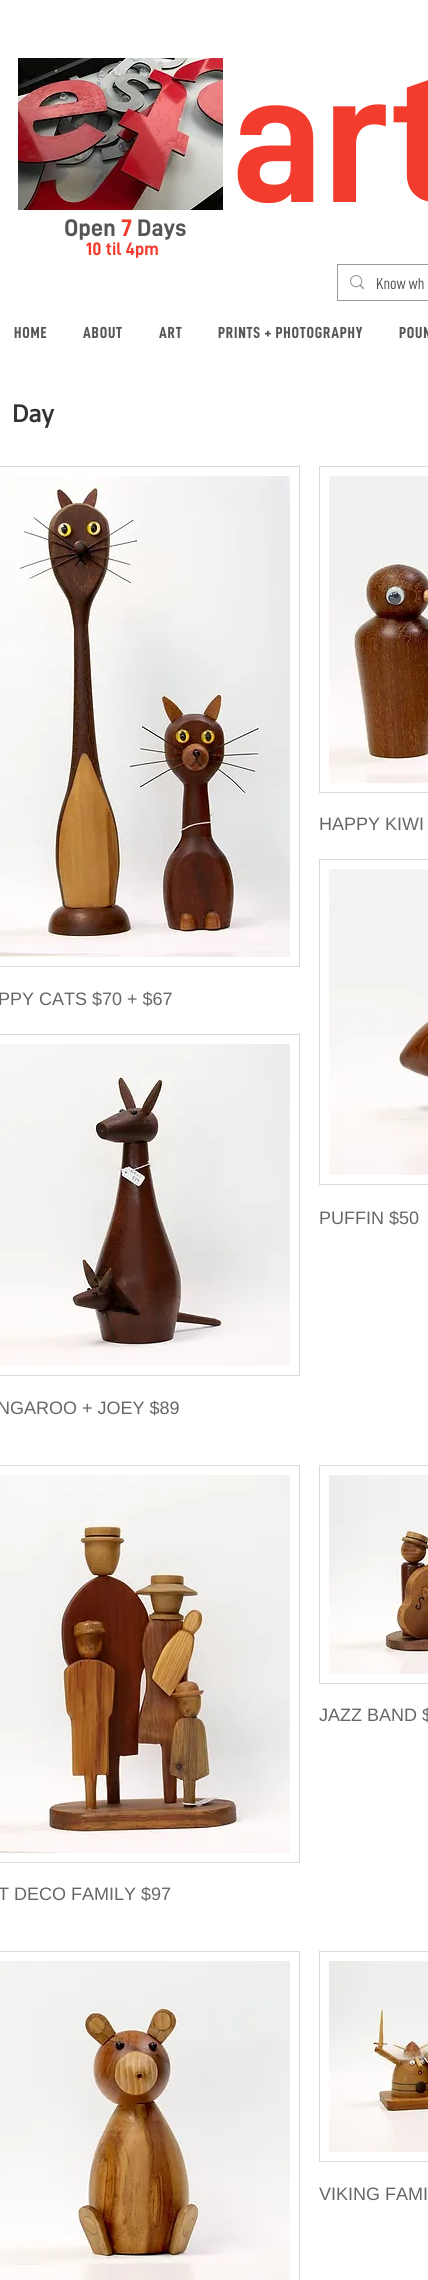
#include <cairo/cairo.h>
#include <math.h>
#include <stddef.h>

typedef struct { double x, y; const char *s; } line_t;
static cairo_t *cr;

static void rgb(unsigned color)
{
	cairo_set_source_rgb(cr, (color >> 16) / 255.0, (color >> 8 & 255) / 255.0, (color & 255) / 255.0);
}

static void tracked(double x, double y, const char *s, double letter, double word)
{
	cairo_move_to(cr, x, y);
	while (*s) {
		char ch[5] = {0};
		int n = 0;
		do ch[n++] = *s++; while ((*s & 0xC0) == 0x80);
		cairo_show_text(cr, ch);
		cairo_rel_move_to(cr, letter + word * (*ch == ' '), 0);
	}
}

static void image(const char *path, double x, double y, double w, double h)
{
	cairo_surface_t *image = cairo_image_surface_create_from_png(path);
	cairo_save(cr);
	cairo_set_source_surface(cr, image, x, y);
	cairo_rectangle(cr, x, y, w, h);
	cairo_fill(cr);
	cairo_restore(cr);
	cairo_surface_destroy(image);
}

int main(void) {
	cairo_surface_t *surface = cairo_image_surface_create(CAIRO_FORMAT_RGB24, 428, 2280);
	cr = cairo_create(surface);
	cairo_font_options_t *options = cairo_font_options_create();
	cairo_font_options_set_hint_metrics(options, CAIRO_HINT_METRICS_OFF);
	cairo_font_options_set_hint_style(options, CAIRO_HINT_STYLE_NONE);
	cairo_set_font_options(cr, options);
	cairo_set_miter_limit(cr, 4);
	rgb(0xffffff);
	cairo_paint(cr);
	image("img/1.png", 18, 58, 205, 152);
	cairo_rectangle(cr, 337.5, 264.5, 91, 36);
	rgb(0x999999);
	cairo_set_line_width(cr, 1);
	cairo_stroke(cr);
	image("img/2.png", 350, 275, 14, 15);
	cairo_rectangle(cr, -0.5, 466.5, 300, 500);
	rgb(0xd9d9d9);
	cairo_stroke(cr);
	image("img/3.png", 0, 476, 290, 481);
	cairo_rectangle(cr, -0.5, 1034.5, 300, 341);
	cairo_stroke(cr);
	image("img/4.png", 0, 1044, 290, 322);
	cairo_rectangle(cr, 319.5, 466.5, 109, 326);
	cairo_stroke(cr);
	image("img/5.png", 329, 476, 99, 307);
	cairo_rectangle(cr, 319.5, 859.5, 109, 325);
	cairo_stroke(cr);
	image("img/6.png", 329, 869, 99, 306);
	cairo_rectangle(cr, 319.5, 1465.5, 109, 218);
	cairo_stroke(cr);
	image("img/7.png", 329, 1475, 99, 199);
	cairo_rectangle(cr, -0.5, 1465.5, 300, 397);
	cairo_stroke(cr);
	image("img/8.png", 0, 1475, 290, 378);
	cairo_rectangle(cr, -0.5, 1951.5, 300, 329);
	cairo_stroke(cr);
	image("img/9.png", 0, 1961, 290, 319);
	cairo_rectangle(cr, 319.5, 1951.5, 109, 210);
	cairo_stroke(cr);
	image("img/10.png", 329, 1961, 99, 191);
	cairo_select_font_face(cr, "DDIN", CAIRO_FONT_SLANT_NORMAL, CAIRO_FONT_WEIGHT_BOLD);
	cairo_set_font_size(cr, 184);
	rgb(0xf23d2e);
	cairo_move_to(cr, 231, 202);
	cairo_show_text(cr, "art");
	cairo_set_font_size(cr, 24);
	rgb(0x555555);
	cairo_move_to(cr, 64, 236);
	cairo_show_text(cr, "Open");
	rgb(0xf23d2e);
	cairo_move_to(cr, 121, 236);
	cairo_show_text(cr, "7");
	rgb(0x555555);
	cairo_move_to(cr, 137, 236);
	cairo_show_text(cr, "Days");
	cairo_set_font_size(cr, 18);
	rgb(0xf23d2e);
	cairo_move_to(cr, 86, 255);
	cairo_show_text(cr, "10 til 4pm");
	cairo_select_font_face(cr, "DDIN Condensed", CAIRO_FONT_SLANT_NORMAL, CAIRO_FONT_WEIGHT_NORMAL);
	cairo_set_font_size(cr, 16);
	rgb(0x555555);
	cairo_move_to(cr, 376, 289);
	cairo_show_text(cr, "Know wh");
	cairo_select_font_face(cr, "DDIN Condensed", CAIRO_FONT_SLANT_NORMAL, CAIRO_FONT_WEIGHT_BOLD);
	{
		static const line_t items[] = {
			{14, 338, "HOME"},
			{83, 338, "ABOUT"},
			{159, 338, "ART"},
			{218, 338, "PRINTS + PHOTOGRAPHY"},
			{399, 338, "POUN"},
		};
		for (size_t i = 0; i < sizeof items / sizeof *items; i++) {
			tracked(items[i].x, items[i].y, items[i].s, 0.8, 0);
		}
	}
	cairo_select_font_face(cr, "Telex", CAIRO_FONT_SLANT_NORMAL, CAIRO_FONT_WEIGHT_BOLD);
	cairo_set_font_size(cr, 24);
	rgb(0x333333);
	cairo_move_to(cr, 12, 422);
	cairo_show_text(cr, "Day");
	cairo_select_font_face(cr, "Liberation Sans", CAIRO_FONT_SLANT_NORMAL, CAIRO_FONT_WEIGHT_NORMAL);
	cairo_set_font_size(cr, 18);
	rgb(0x666666);
	{
		static const line_t items[] = {
			{-2, 1005, "PPY CATS $70 + $67"},
			{-3, 1414, "NGAROO + JOEY $89"},
			{319, 830, "HAPPY KIWI"},
			{319, 1224, "PUFFIN $50"},
			{319, 1721, "JAZZ BAND $"},
			{-2, 1900, "T DECO FAMILY $97"},
			{319, 2200, "VIKING FAMI"},
		};
		for (size_t i = 0; i < sizeof items / sizeof *items; i++) {
			cairo_move_to(cr, items[i].x, items[i].y);
			cairo_show_text(cr, items[i].s);
		}
	}
	cairo_surface_write_to_png(surface, "page.png");
	cairo_font_options_destroy(options);
	cairo_destroy(cr);
	cairo_surface_destroy(surface);
	return 0;
}
